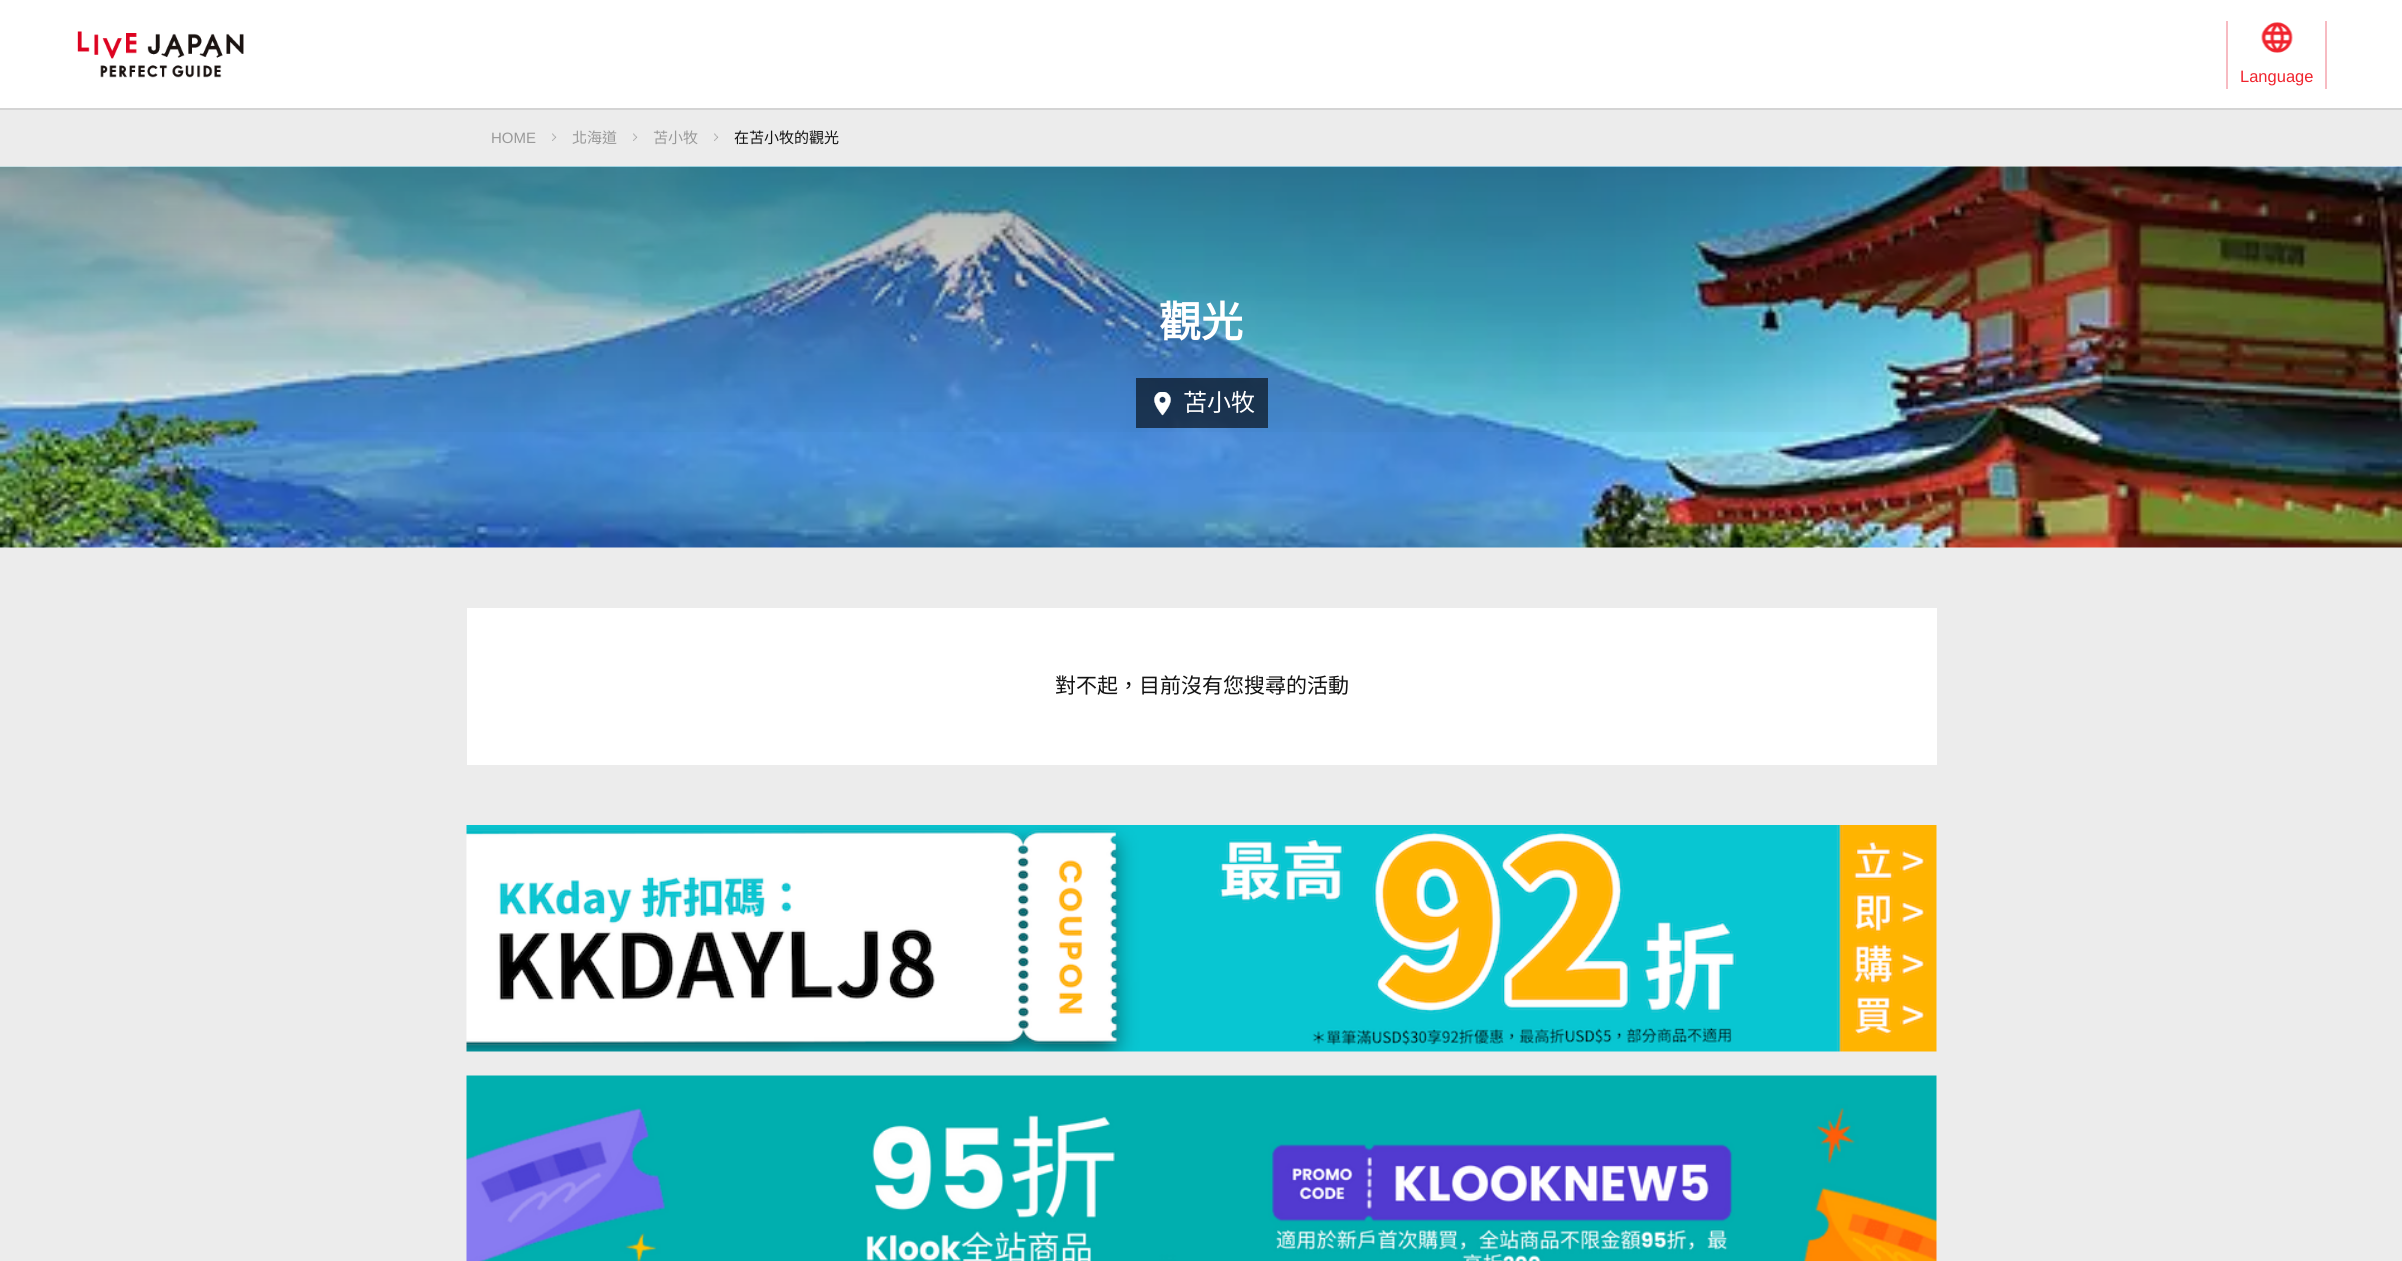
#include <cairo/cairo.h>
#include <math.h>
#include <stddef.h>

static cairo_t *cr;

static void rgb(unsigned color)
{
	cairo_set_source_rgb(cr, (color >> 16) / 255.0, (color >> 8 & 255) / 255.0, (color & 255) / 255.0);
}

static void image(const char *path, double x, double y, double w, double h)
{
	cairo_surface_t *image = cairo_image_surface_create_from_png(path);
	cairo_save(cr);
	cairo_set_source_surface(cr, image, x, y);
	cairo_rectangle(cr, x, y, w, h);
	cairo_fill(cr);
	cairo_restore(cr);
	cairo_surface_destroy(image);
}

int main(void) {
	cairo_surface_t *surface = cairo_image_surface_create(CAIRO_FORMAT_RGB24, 2402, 1261);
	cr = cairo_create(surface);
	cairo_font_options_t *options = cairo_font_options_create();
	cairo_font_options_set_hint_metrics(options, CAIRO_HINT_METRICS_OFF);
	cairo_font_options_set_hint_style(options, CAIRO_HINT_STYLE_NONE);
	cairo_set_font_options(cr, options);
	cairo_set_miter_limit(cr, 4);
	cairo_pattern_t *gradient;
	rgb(0xffffff);
	cairo_paint(cr);
	rgb(0xd4d4d4);
	cairo_rectangle(cr, 0, 108, 2402, 2);
	cairo_fill(cr);
	image("img/1.png", 77, 31, 167, 47);
	rgb(0xf7bbc2);
	cairo_rectangle(cr, 2325, 21, 2, 68);
	cairo_fill(cr);
	cairo_rectangle(cr, 2226, 21, 2, 68);
	cairo_fill(cr);
	image("img/2.png", 2261, 22, 32, 31);
	rgb(0xececec);
	cairo_rectangle(cr, 0, 110, 2402, 1151);
	cairo_fill(cr);
	image("img/3.png", 552, 133, 5, 8);
	image("img/3.png", 633, 133, 5, 8);
	image("img/4.png", 714, 133, 5, 8);
	image("img/5.png", 0, 166, 2402, 382);
	gradient = cairo_pattern_create_linear(1202, 166, 1202, 548);
	cairo_pattern_add_color_stop_rgba(gradient, 0, 0, 0, 0, 0.3);
	cairo_pattern_add_color_stop_rgba(gradient, 0.75, 0, 0, 0, 0);
	cairo_set_source(cr, gradient);
	cairo_pattern_destroy(gradient);
	cairo_rectangle(cr, 0, 167, 2402, 265);
	cairo_fill(cr);
	cairo_set_source_rgba(cr, 0, 0, 0, 0.6);
	cairo_rectangle(cr, 1136, 378, 132, 50);
	cairo_fill(cr);
	image("img/6.png", 1154, 392, 17, 24);
	rgb(0xffffff);
	cairo_rectangle(cr, 467, 608, 1470, 157);
	cairo_fill(cr);
	image("img/7.png", 466, 825, 1471, 227);
	image("img/8.png", 466, 1075, 1471, 186);
	cairo_select_font_face(cr, "Liberation Sans", CAIRO_FONT_SLANT_NORMAL, CAIRO_FONT_WEIGHT_NORMAL);
	cairo_set_font_size(cr, 16.5);
	rgb(0xf0232d);
	cairo_move_to(cr, 2240, 82);
	cairo_show_text(cr, "Language");
	cairo_set_font_size(cr, 15);
	rgb(0x999999);
	cairo_move_to(cr, 491, 143);
	cairo_show_text(cr, "HOME");
	cairo_select_font_face(cr, "Noto Sans CJK TC", CAIRO_FONT_SLANT_NORMAL, CAIRO_FONT_WEIGHT_NORMAL);
	cairo_move_to(cr, 572, 143);
	cairo_show_text(cr, "北海道");
	cairo_move_to(cr, 653, 143);
	cairo_show_text(cr, "苫小牧");
	rgb(0x131313);
	cairo_move_to(cr, 734, 143);
	cairo_show_text(cr, "在苫小牧的觀光");
	cairo_select_font_face(cr, "Noto Sans CJK TC", CAIRO_FONT_SLANT_NORMAL, CAIRO_FONT_WEIGHT_BOLD);
	cairo_set_font_size(cr, 42);
	rgb(0xffffff);
	cairo_move_to(cr, 1159, 337);
	cairo_show_text(cr, "觀光");
	cairo_select_font_face(cr, "Noto Sans CJK TC", CAIRO_FONT_SLANT_NORMAL, CAIRO_FONT_WEIGHT_NORMAL);
	cairo_set_font_size(cr, 24);
	cairo_move_to(cr, 1183, 411);
	cairo_show_text(cr, "苫小牧");
	cairo_set_font_size(cr, 21);
	rgb(0x131313);
	cairo_move_to(cr, 1055, 693);
	cairo_show_text(cr, "對不起，目前沒有您搜尋的活動");
	cairo_surface_write_to_png(surface, "page.png");
	cairo_font_options_destroy(options);
	cairo_destroy(cr);
	cairo_surface_destroy(surface);
	return 0;
}
